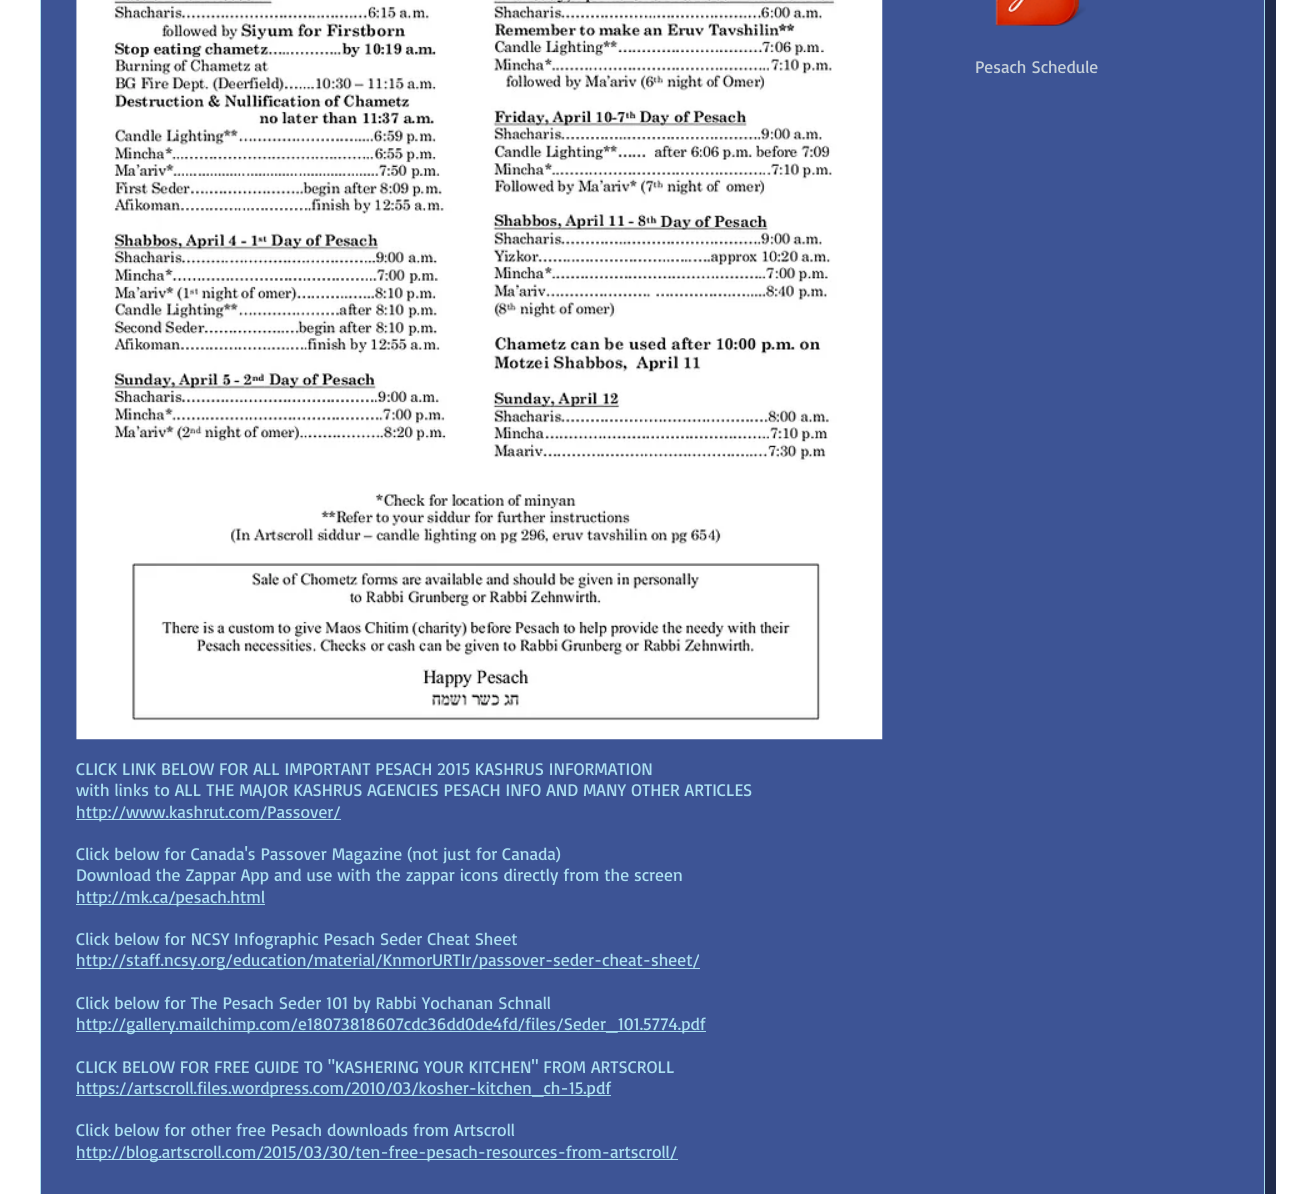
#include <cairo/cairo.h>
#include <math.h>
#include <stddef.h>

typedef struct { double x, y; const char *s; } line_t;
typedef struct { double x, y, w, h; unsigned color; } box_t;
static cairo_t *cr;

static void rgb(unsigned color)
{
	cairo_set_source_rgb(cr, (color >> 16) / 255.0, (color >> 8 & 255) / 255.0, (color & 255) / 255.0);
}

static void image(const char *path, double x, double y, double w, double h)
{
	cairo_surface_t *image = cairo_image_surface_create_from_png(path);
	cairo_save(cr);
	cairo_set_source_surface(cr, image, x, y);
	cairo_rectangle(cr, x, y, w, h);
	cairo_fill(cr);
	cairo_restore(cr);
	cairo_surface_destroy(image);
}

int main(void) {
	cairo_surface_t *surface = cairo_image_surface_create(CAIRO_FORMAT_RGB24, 1304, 1194);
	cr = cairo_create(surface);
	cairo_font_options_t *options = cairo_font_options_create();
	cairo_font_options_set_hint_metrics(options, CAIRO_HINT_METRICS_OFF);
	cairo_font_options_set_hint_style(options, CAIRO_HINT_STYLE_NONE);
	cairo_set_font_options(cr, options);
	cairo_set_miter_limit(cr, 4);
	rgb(0xffffff);
	cairo_paint(cr);
	rgb(0x1f2a4b);
	cairo_new_path(cr);
	cairo_move_to(cr, 51, 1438);
	cairo_line_to(cr, 51, 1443);
	cairo_curve_to(cr, 51, 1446, 54, 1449, 57, 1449);
	cairo_line_to(cr, 1270, 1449);
	cairo_curve_to(cr, 1273, 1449, 1276, 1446, 1276, 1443);
	cairo_line_to(cr, 1276, -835);
	cairo_curve_to(cr, 1276, -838, 1273, -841, 1270, -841);
	cairo_line_to(cr, 1265, -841);
	cairo_line_to(cr, 1265, 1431);
	cairo_curve_to(cr, 1265, 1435, 1262, 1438, 1259, 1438);
	cairo_close_path(cr);
	cairo_fill(cr);
	rgb(0xabe0f2);
	cairo_rectangle(cr, 40, 0, 1225, 1194);
	cairo_fill(cr);
	rgb(0x3d5495);
	cairo_rectangle(cr, 41, 0, 1223, 1194);
	cairo_fill(cr);
	image("img/1.png", 76, 0, 807, 740);
	image("img/2.png", 995, 0, 91, 26);
	{
		static const box_t items[] = {
			{76, 819, 265, 1, 0xabe0f2},
			{76, 904, 189, 1, 0xabe0f2},
			{76, 968, 624, 1, 0xabe0f2},
			{76, 1031, 630, 1, 0xabe0f2},
			{76, 1095, 535, 1, 0xabe0f2},
			{76, 1159, 602, 1, 0xabe0f2},
		};
		for (size_t i = 0; i < sizeof items / sizeof *items; i++) {
			rgb(items[i].color);
			cairo_rectangle(cr, items[i].x, items[i].y, items[i].w, items[i].h);
			cairo_fill(cr);
		}
	}
	cairo_select_font_face(cr, "Basic", CAIRO_FONT_SLANT_NORMAL, CAIRO_FONT_WEIGHT_NORMAL);
	cairo_set_font_size(cr, 17.5);
	rgb(0xc5d0d9);
	cairo_move_to(cr, 975, 73);
	cairo_show_text(cr, "Pesach Schedule");
	rgb(0xabe0f2);
	{
		static const line_t items[] = {
			{76, 775, "CLICK LINK BELOW FOR ALL IMPORTANT PESACH 2015 KASHRUS INFORMATION"},
			{76, 796, "with links to ALL THE MAJOR KASHRUS AGENCIES PESACH INFO AND MANY OTHER ARTICLES"},
			{76, 818, "http://www.kashrut.com/Passover/"},
			{76, 860, "Click below for Canada's Passover Magazine (not just for Canada)"},
			{76, 881, "Download the Zappar App and use with the zappar icons directly from the screen"},
			{76, 903, "http://mk.ca/pesach.html"},
			{76, 945, "Click below for NCSY Infographic Pesach Seder Cheat Sheet"},
			{76, 966, "http://staff.ncsy.org/education/material/KnmorURTIr/passover-seder-cheat-sheet/"},
			{76, 1009, "Click below for The Pesach Seder 101 by Rabbi Yochanan Schnall"},
			{76, 1030, "http://gallery.mailchimp.com/e18073818607cdc36dd0de4fd/files/Seder_101.5774.pdf"},
			{76, 1073, "CLICK BELOW FOR FREE GUIDE TO \"KASHERING YOUR KITCHEN\" FROM ARTSCROLL"},
			{76, 1094, "https://artscroll.files.wordpress.com/2010/03/kosher-kitchen_ch-15.pdf"},
			{76, 1136, "Click below for other free Pesach downloads from Artscroll"},
			{76, 1158, "http://blog.artscroll.com/2015/03/30/ten-free-pesach-resources-from-artscroll/"},
		};
		for (size_t i = 0; i < sizeof items / sizeof *items; i++) {
			cairo_move_to(cr, items[i].x, items[i].y);
			cairo_show_text(cr, items[i].s);
		}
	}
	cairo_surface_write_to_png(surface, "page.png");
	cairo_font_options_destroy(options);
	cairo_destroy(cr);
	cairo_surface_destroy(surface);
	return 0;
}
